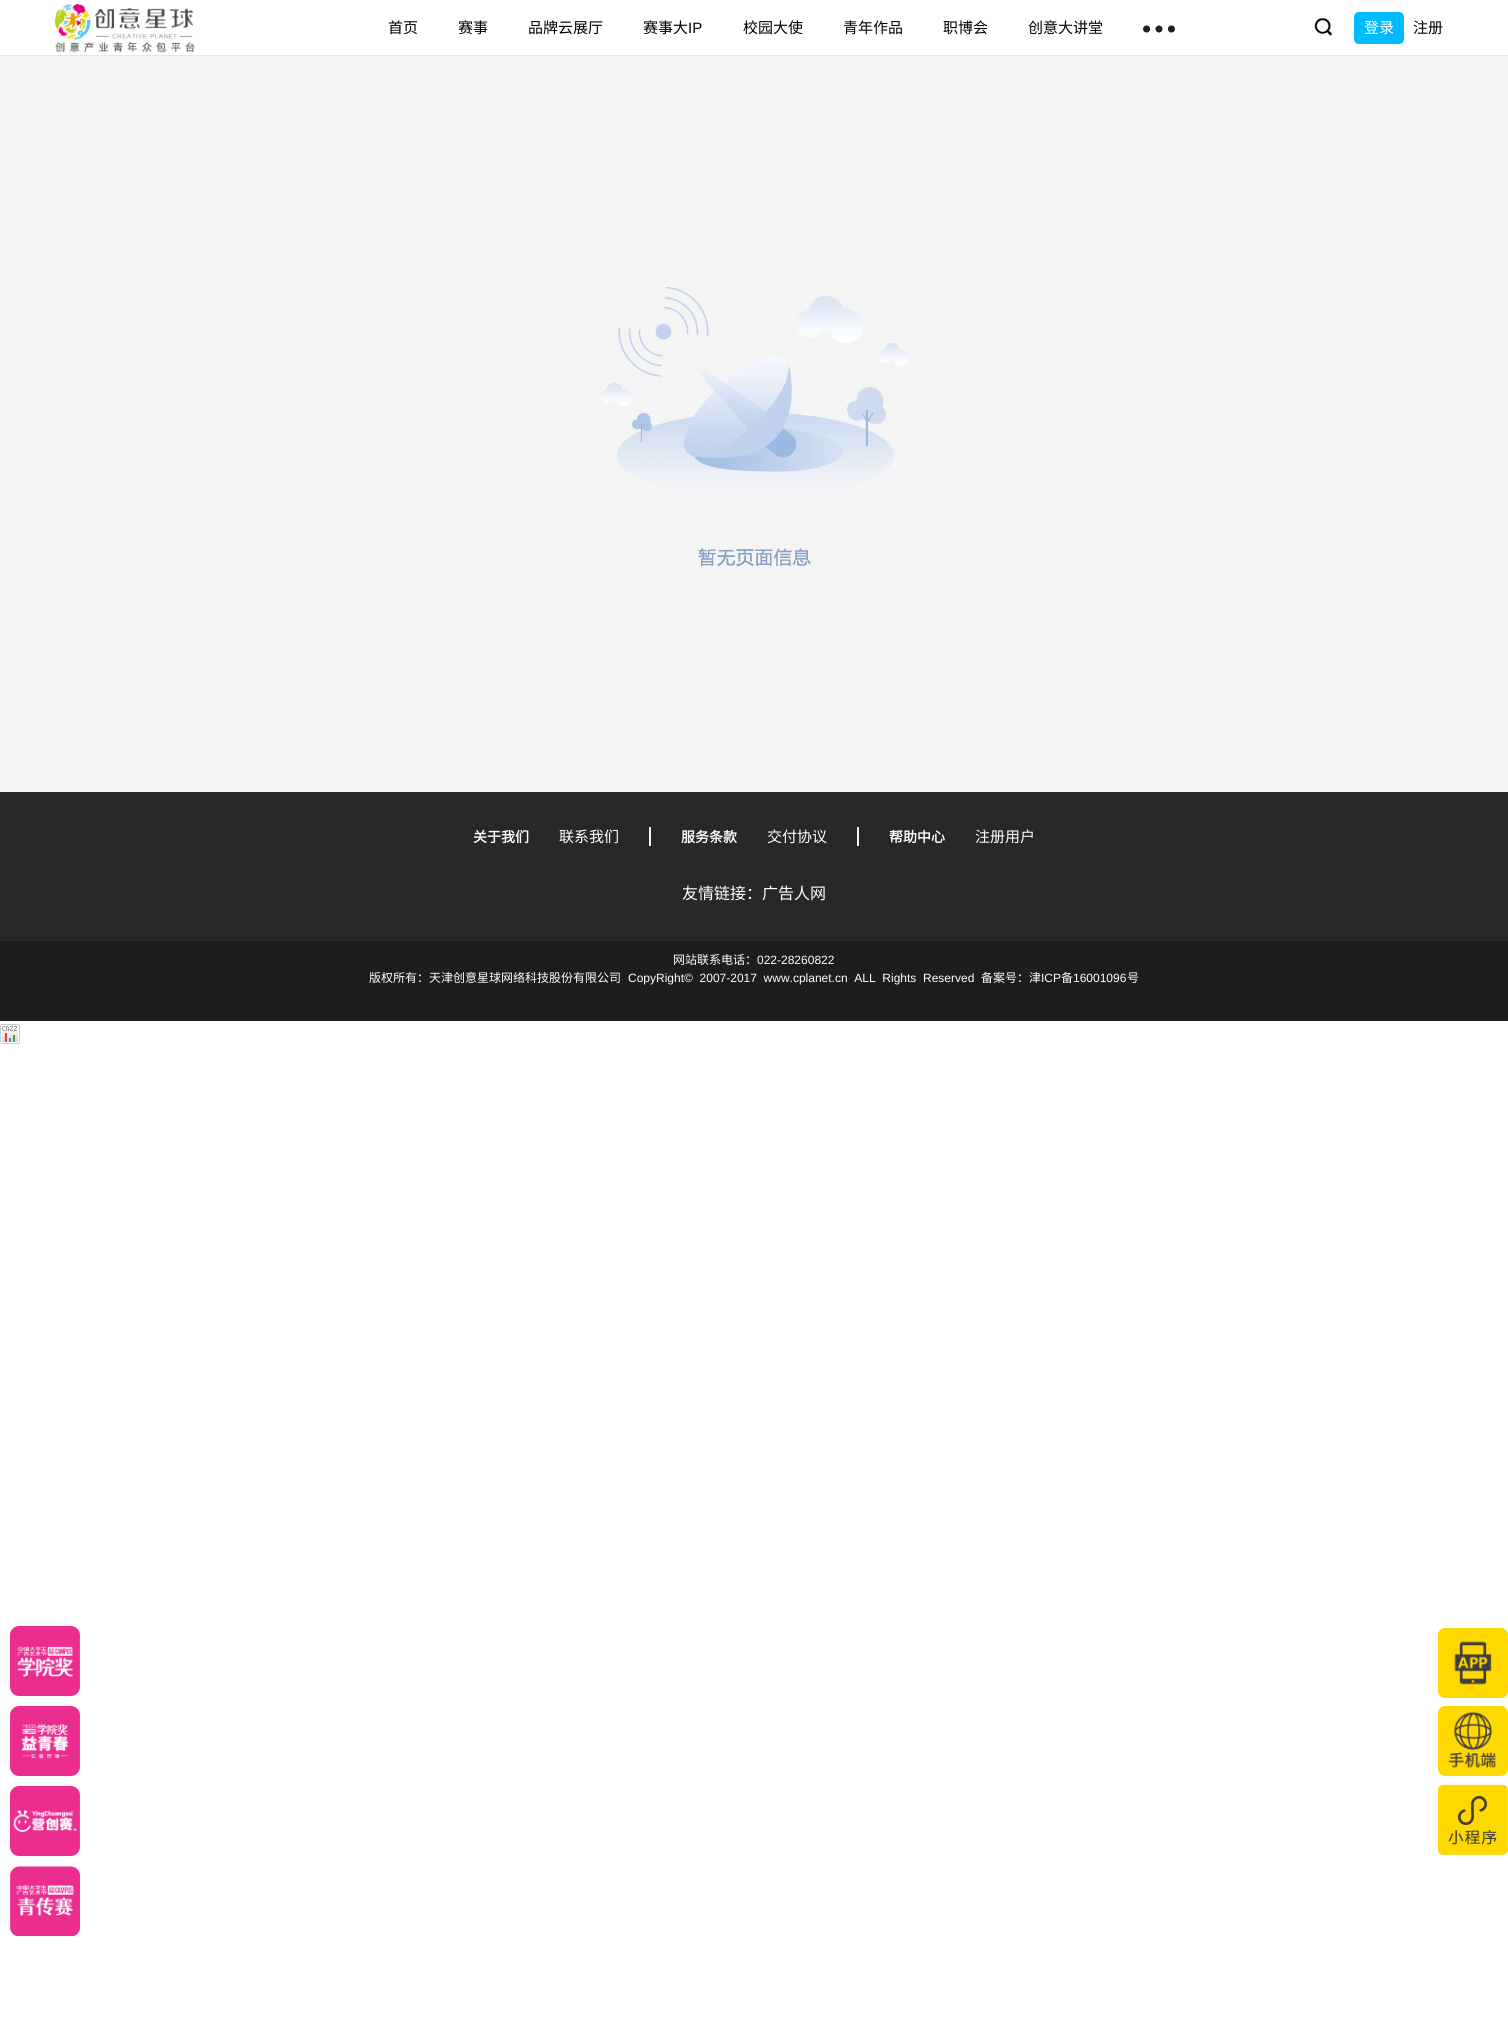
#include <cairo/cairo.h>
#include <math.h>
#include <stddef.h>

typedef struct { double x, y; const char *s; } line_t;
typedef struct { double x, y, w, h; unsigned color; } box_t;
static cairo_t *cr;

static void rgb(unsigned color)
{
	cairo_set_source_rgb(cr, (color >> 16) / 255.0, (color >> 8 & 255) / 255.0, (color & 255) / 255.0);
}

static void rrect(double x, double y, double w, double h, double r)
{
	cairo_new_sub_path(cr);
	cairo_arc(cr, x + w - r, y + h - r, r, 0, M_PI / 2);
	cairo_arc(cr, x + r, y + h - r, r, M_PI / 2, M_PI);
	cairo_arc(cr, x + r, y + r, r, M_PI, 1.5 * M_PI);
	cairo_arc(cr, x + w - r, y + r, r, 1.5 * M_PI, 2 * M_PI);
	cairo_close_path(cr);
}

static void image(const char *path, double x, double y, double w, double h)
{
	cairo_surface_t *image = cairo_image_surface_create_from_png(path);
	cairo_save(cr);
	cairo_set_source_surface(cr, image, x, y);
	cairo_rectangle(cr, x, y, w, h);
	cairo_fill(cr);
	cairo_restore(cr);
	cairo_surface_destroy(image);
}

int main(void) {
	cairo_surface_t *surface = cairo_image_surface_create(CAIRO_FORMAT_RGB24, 1508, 2033);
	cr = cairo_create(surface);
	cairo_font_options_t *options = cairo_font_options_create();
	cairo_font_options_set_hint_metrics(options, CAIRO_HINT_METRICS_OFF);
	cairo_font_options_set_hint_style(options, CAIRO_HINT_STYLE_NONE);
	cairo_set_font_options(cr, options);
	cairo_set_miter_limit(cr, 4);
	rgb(0xffffff);
	cairo_paint(cr);
	rgb(0xe6e6e6);
	cairo_rectangle(cr, 0, 55, 1508, 1);
	cairo_fill(cr);
	image("img/1.png", 55, 4, 140, 49);
	image("img/2.png", 1143, 25, 32, 8);
	image("img/3.png", 1314, 17, 18, 19);
	rgb(0x00baff);
	rrect(1354, 12, 50, 32, 5);
	cairo_fill(cr);
	rgb(0xf4f4f4);
	cairo_rectangle(cr, 0, 56, 1508, 736);
	cairo_fill(cr);
	image("img/4.png", 600, 286, 309, 281);
	{
		static const box_t items[] = {
			{0, 792, 1508, 149, 0x282828},
			{649, 827, 2, 19, 0xf4f4f4},
			{857, 827, 2, 19, 0xf4f4f4},
			{0, 941, 1508, 80, 0x1d1d1d},
		};
		for (size_t i = 0; i < sizeof items / sizeof *items; i++) {
			rgb(items[i].color);
			cairo_rectangle(cr, items[i].x, items[i].y, items[i].w, items[i].h);
			cairo_fill(cr);
		}
	}
	image("img/5.png", 0, 1024, 20, 20);
	image("img/6.png", 10, 1626, 70, 70);
	image("img/7.png", 10, 1706, 70, 70);
	image("img/8.png", 10, 1786, 70, 70);
	image("img/9.png", 10, 1866, 70, 70);
	image("img/10.png", 1438, 1628, 70, 70);
	image("img/11.png", 1438, 1706, 70, 70);
	image("img/12.png", 1438, 1784, 70, 71);
	cairo_select_font_face(cr, "Noto Sans CJK SC", CAIRO_FONT_SLANT_NORMAL, CAIRO_FONT_WEIGHT_NORMAL);
	cairo_set_font_size(cr, 15);
	rgb(0x000000);
	{
		static const line_t items[] = {
			{388, 33, "首页"},
			{458, 33, "赛事"},
			{528, 33, "品牌云展厅"},
			{643, 33, "赛事大"},
		};
		for (size_t i = 0; i < sizeof items / sizeof *items; i++) {
			cairo_move_to(cr, items[i].x, items[i].y);
			cairo_show_text(cr, items[i].s);
		}
	}
	cairo_select_font_face(cr, "Liberation Sans", CAIRO_FONT_SLANT_NORMAL, CAIRO_FONT_WEIGHT_NORMAL);
	cairo_move_to(cr, 688, 33);
	cairo_show_text(cr, "IP");
	cairo_select_font_face(cr, "Noto Sans CJK SC", CAIRO_FONT_SLANT_NORMAL, CAIRO_FONT_WEIGHT_NORMAL);
	{
		static const line_t items[] = {
			{743, 33, "校园大使"},
			{843, 33, "青年作品"},
			{943, 33, "职博会"},
			{1028, 33, "创意大讲堂"},
		};
		for (size_t i = 0; i < sizeof items / sizeof *items; i++) {
			cairo_move_to(cr, items[i].x, items[i].y);
			cairo_show_text(cr, items[i].s);
		}
	}
	rgb(0xffffff);
	cairo_move_to(cr, 1364, 33);
	cairo_show_text(cr, "登录");
	rgb(0x000000);
	cairo_move_to(cr, 1413, 33);
	cairo_show_text(cr, "注册");
	cairo_select_font_face(cr, "Noto Sans CJK SC", CAIRO_FONT_SLANT_NORMAL, CAIRO_FONT_WEIGHT_BOLD);
	cairo_set_font_size(cr, 14);
	rgb(0xffffff);
	cairo_move_to(cr, 473, 842);
	cairo_show_text(cr, "关于我们");
	cairo_select_font_face(cr, "Noto Sans CJK SC", CAIRO_FONT_SLANT_NORMAL, CAIRO_FONT_WEIGHT_NORMAL);
	cairo_set_font_size(cr, 15);
	cairo_move_to(cr, 559, 842);
	cairo_show_text(cr, "联系我们");
	cairo_select_font_face(cr, "Noto Sans CJK SC", CAIRO_FONT_SLANT_NORMAL, CAIRO_FONT_WEIGHT_BOLD);
	cairo_set_font_size(cr, 14);
	cairo_move_to(cr, 681, 842);
	cairo_show_text(cr, "服务条款");
	cairo_select_font_face(cr, "Noto Sans CJK SC", CAIRO_FONT_SLANT_NORMAL, CAIRO_FONT_WEIGHT_NORMAL);
	cairo_set_font_size(cr, 15);
	cairo_move_to(cr, 767, 842);
	cairo_show_text(cr, "交付协议");
	cairo_select_font_face(cr, "Noto Sans CJK SC", CAIRO_FONT_SLANT_NORMAL, CAIRO_FONT_WEIGHT_BOLD);
	cairo_set_font_size(cr, 14);
	cairo_move_to(cr, 889, 842);
	cairo_show_text(cr, "帮助中心");
	cairo_select_font_face(cr, "Noto Sans CJK SC", CAIRO_FONT_SLANT_NORMAL, CAIRO_FONT_WEIGHT_NORMAL);
	cairo_set_font_size(cr, 15);
	cairo_move_to(cr, 975, 842);
	cairo_show_text(cr, "注册用户");
	cairo_set_font_size(cr, 16);
	cairo_move_to(cr, 682, 899);
	cairo_show_text(cr, "友情链接：广告人网");
	cairo_set_font_size(cr, 12);
	cairo_move_to(cr, 673, 964);
	cairo_show_text(cr, "网站联系电话：");
	cairo_select_font_face(cr, "Liberation Sans", CAIRO_FONT_SLANT_NORMAL, CAIRO_FONT_WEIGHT_NORMAL);
	cairo_move_to(cr, 757, 964);
	cairo_show_text(cr, "022-28260822");
	cairo_select_font_face(cr, "Noto Sans CJK SC", CAIRO_FONT_SLANT_NORMAL, CAIRO_FONT_WEIGHT_NORMAL);
	cairo_move_to(cr, 369, 982);
	cairo_show_text(cr, "版权所有：天津创意星球网络科技股份有限公司");
	cairo_select_font_face(cr, "Liberation Sans", CAIRO_FONT_SLANT_NORMAL, CAIRO_FONT_WEIGHT_NORMAL);
	cairo_move_to(cr, 628, 982);
	cairo_show_text(cr, "CopyRight©  2007-2017  www.cplanet.cn  ALL  Rights  Reserved");
	cairo_select_font_face(cr, "Noto Sans CJK SC", CAIRO_FONT_SLANT_NORMAL, CAIRO_FONT_WEIGHT_NORMAL);
	cairo_move_to(cr, 981, 982);
	cairo_show_text(cr, "备案号：津");
	cairo_select_font_face(cr, "Liberation Sans", CAIRO_FONT_SLANT_NORMAL, CAIRO_FONT_WEIGHT_NORMAL);
	cairo_move_to(cr, 1041, 982);
	cairo_show_text(cr, "ICP");
	cairo_select_font_face(cr, "Noto Sans CJK SC", CAIRO_FONT_SLANT_NORMAL, CAIRO_FONT_WEIGHT_NORMAL);
	cairo_move_to(cr, 1061, 982);
	cairo_show_text(cr, "备");
	cairo_select_font_face(cr, "Liberation Sans", CAIRO_FONT_SLANT_NORMAL, CAIRO_FONT_WEIGHT_NORMAL);
	cairo_move_to(cr, 1073, 982);
	cairo_show_text(cr, "16001096");
	cairo_select_font_face(cr, "Noto Sans CJK SC", CAIRO_FONT_SLANT_NORMAL, CAIRO_FONT_WEIGHT_NORMAL);
	cairo_move_to(cr, 1127, 982);
	cairo_show_text(cr, "号");
	cairo_surface_write_to_png(surface, "page.png");
	cairo_font_options_destroy(options);
	cairo_destroy(cr);
	cairo_surface_destroy(surface);
	return 0;
}
